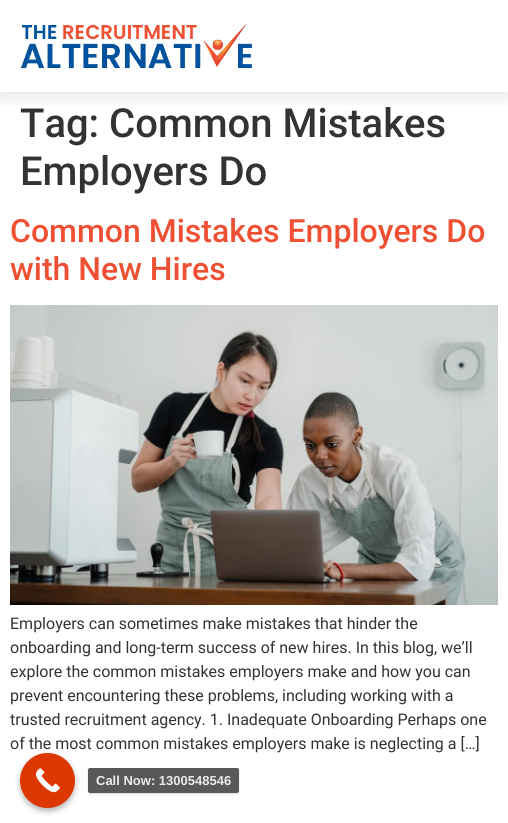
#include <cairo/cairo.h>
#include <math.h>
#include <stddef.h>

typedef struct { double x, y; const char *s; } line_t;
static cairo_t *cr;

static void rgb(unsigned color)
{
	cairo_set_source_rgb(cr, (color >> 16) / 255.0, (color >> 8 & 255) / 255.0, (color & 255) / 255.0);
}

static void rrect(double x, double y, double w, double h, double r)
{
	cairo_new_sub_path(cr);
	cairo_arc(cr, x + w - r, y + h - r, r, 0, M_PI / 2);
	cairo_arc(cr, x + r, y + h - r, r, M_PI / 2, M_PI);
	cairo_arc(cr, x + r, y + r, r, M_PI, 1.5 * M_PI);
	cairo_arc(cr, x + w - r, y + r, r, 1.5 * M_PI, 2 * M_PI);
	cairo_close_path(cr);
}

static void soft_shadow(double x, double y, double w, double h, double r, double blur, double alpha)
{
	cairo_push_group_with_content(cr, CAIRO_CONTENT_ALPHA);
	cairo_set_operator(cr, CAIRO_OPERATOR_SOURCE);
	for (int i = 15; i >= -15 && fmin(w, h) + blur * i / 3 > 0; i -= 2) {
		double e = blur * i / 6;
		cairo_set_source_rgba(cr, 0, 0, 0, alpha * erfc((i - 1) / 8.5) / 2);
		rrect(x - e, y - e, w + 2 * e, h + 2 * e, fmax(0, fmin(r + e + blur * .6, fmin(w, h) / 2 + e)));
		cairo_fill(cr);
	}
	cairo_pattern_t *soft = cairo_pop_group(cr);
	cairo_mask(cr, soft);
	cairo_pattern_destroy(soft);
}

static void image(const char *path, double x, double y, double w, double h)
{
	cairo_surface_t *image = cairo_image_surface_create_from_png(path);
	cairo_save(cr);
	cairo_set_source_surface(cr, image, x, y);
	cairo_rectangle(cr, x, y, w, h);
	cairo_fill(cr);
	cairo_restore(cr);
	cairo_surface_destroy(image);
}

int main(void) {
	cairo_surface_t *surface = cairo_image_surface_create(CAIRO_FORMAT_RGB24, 508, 823);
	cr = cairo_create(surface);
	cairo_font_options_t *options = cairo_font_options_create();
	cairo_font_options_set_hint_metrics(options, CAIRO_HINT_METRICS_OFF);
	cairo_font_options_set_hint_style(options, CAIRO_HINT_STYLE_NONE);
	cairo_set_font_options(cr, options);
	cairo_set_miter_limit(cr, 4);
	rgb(0xffffff);
	cairo_paint(cr);
	cairo_save(cr);
	cairo_rectangle(cr, 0, 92, 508, 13);
	cairo_clip(cr);
	rgb(0x000000);
	soft_shadow(0, 0, 508, 92, 0, 12, 0.15);
	cairo_restore(cr);
	image("img/1.png", 20, 24, 233, 44);
	image("img/2.png", 10, 305, 488, 300);
	rgb(0x000000);
	soft_shadow(20, 756, 55, 55, 27.5, 3, 0.3);
	rgb(0xdd3700);
	cairo_arc(cr, 47.5, 780.5, 27.5, 0, 2 * M_PI);
	cairo_fill(cr);
	image("img/3.png", 35, 768, 25, 25);
	cairo_save(cr);
	cairo_set_fill_rule(cr, CAIRO_FILL_RULE_EVEN_ODD);
	cairo_new_path(cr);
	cairo_move_to(cr, 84, 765);
	cairo_line_to(cr, 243, 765);
	cairo_line_to(cr, 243, 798);
	cairo_line_to(cr, 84, 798);
	cairo_close_path(cr);
	cairo_move_to(cr, 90, 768);
	cairo_line_to(cr, 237, 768);
	cairo_curve_to(cr, 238, 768, 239, 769, 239, 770);
	cairo_line_to(cr, 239, 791);
	cairo_curve_to(cr, 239, 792, 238, 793, 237, 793);
	cairo_line_to(cr, 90, 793);
	cairo_curve_to(cr, 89, 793, 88, 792, 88, 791);
	cairo_line_to(cr, 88, 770);
	cairo_curve_to(cr, 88, 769, 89, 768, 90, 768);
	cairo_close_path(cr);
	cairo_clip(cr);
	rgb(0x000000);
	soft_shadow(88, 769, 151, 25, 2, 1, 0.15);
	cairo_restore(cr);
	cairo_set_source_rgba(cr, 0.275, 0.275, 0.275, 0.9);
	rrect(88, 768, 151, 25, 2);
	cairo_fill(cr);
	cairo_select_font_face(cr, "Roboto Medium", CAIRO_FONT_SLANT_NORMAL, CAIRO_FONT_WEIGHT_NORMAL);
	cairo_set_font_size(cr, 40);
	rgb(0x333333);
	cairo_move_to(cr, 20, 137);
	cairo_show_text(cr, "Tag: Common Mistakes");
	cairo_move_to(cr, 20, 185);
	cairo_show_text(cr, "Employers Do");
	cairo_set_font_size(cr, 32);
	rgb(0xef5033);
	cairo_move_to(cr, 10, 242);
	cairo_show_text(cr, "Common Mistakes Employers Do");
	cairo_move_to(cr, 10, 280);
	cairo_show_text(cr, "with New Hires");
	cairo_select_font_face(cr, "Roboto", CAIRO_FONT_SLANT_NORMAL, CAIRO_FONT_WEIGHT_NORMAL);
	cairo_set_font_size(cr, 16);
	rgb(0x333333);
	{
		static const line_t items[] = {
			{10, 629, "Employers can sometimes make mistakes that hinder the"},
			{10, 653, "onboarding and long-term success of new hires. In this blog, we’ll"},
			{10, 677, "explore the common mistakes employers make and how you can"},
			{10, 701, "prevent encountering these problems, including working with a"},
			{10, 725, "trusted recruitment agency. 1. Inadequate Onboarding Perhaps one"},
			{10, 749, "of the most common mistakes employers make is neglecting a […]"},
		};
		for (size_t i = 0; i < sizeof items / sizeof *items; i++) {
			cairo_move_to(cr, items[i].x, items[i].y);
			cairo_show_text(cr, items[i].s);
		}
	}
	cairo_select_font_face(cr, "Liberation Sans", CAIRO_FONT_SLANT_NORMAL, CAIRO_FONT_WEIGHT_BOLD);
	cairo_set_font_size(cr, 13);
	rgb(0xececec);
	cairo_move_to(cr, 96, 785);
	cairo_show_text(cr, "Call Now: 1300548546");
	cairo_surface_write_to_png(surface, "page.png");
	cairo_font_options_destroy(options);
	cairo_destroy(cr);
	cairo_surface_destroy(surface);
	return 0;
}
